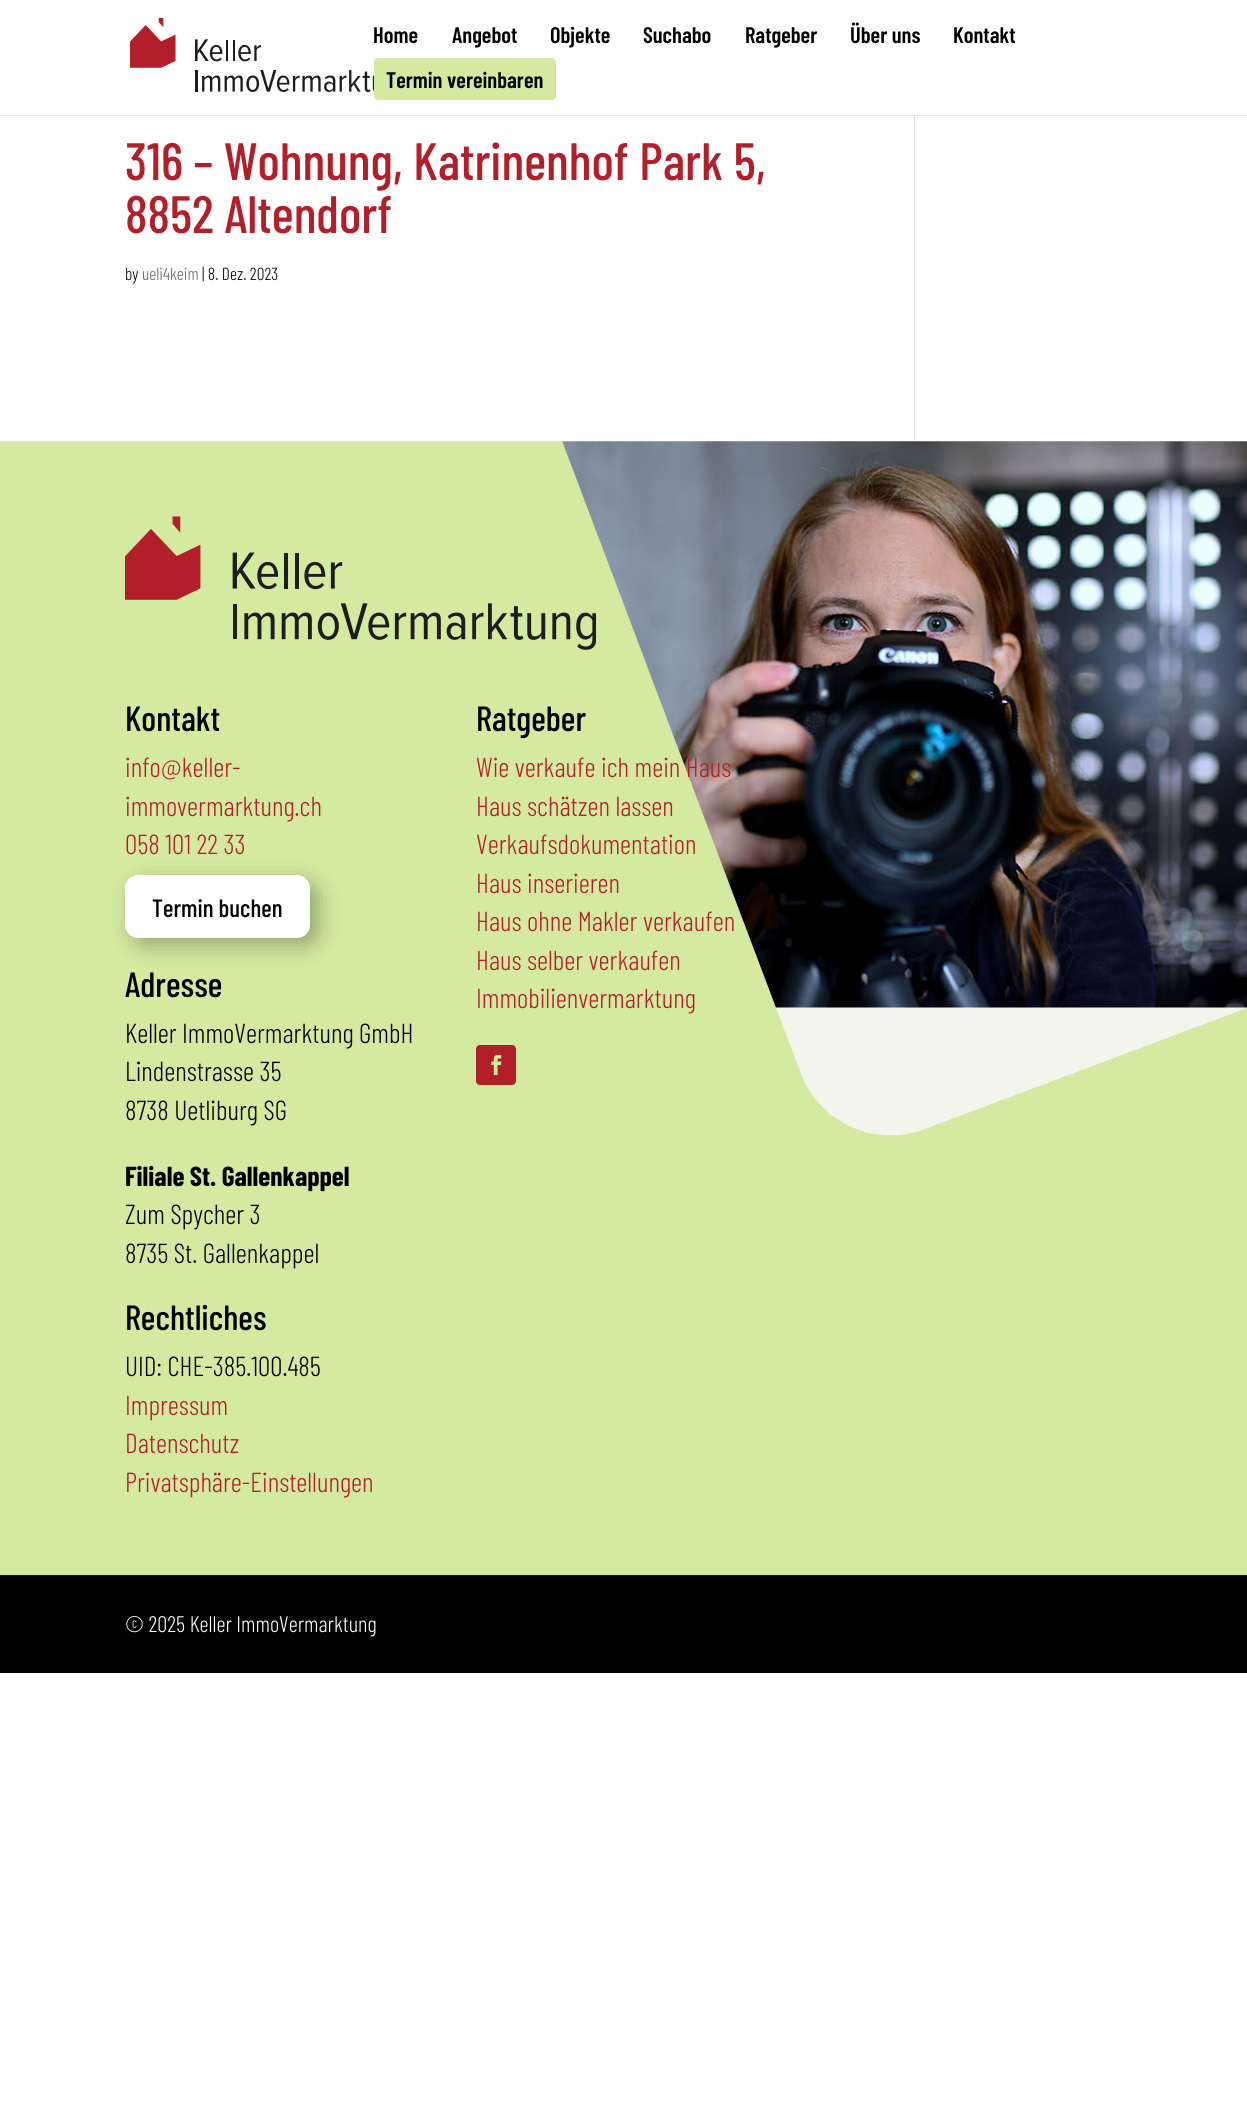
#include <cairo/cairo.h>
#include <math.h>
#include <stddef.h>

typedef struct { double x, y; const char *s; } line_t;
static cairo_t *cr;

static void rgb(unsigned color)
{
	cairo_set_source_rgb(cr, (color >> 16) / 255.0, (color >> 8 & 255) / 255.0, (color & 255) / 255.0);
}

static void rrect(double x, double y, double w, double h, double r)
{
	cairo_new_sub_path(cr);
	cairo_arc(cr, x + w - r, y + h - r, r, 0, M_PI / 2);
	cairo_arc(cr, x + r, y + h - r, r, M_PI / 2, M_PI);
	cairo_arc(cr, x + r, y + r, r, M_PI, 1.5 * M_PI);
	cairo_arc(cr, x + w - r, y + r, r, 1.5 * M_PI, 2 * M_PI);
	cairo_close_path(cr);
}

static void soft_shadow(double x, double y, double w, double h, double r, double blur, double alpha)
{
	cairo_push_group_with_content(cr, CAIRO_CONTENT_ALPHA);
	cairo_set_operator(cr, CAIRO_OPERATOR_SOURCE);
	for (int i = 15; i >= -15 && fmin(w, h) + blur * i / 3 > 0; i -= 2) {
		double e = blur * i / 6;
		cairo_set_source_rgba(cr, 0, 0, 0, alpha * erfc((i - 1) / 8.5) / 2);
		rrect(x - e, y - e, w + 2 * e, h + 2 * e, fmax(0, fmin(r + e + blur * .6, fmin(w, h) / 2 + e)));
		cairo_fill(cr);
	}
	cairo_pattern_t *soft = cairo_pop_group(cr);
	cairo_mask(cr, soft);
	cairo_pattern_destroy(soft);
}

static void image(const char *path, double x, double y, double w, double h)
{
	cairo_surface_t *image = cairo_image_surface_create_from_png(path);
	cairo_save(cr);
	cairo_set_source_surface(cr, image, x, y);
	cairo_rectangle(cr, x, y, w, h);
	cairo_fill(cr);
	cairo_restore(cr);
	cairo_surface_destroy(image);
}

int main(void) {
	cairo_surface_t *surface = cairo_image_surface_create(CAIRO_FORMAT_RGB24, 1247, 2104);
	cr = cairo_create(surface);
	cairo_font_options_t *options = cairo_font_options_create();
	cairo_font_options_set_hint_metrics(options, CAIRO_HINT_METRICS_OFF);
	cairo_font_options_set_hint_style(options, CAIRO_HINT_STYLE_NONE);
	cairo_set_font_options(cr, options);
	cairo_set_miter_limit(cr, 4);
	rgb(0xffffff);
	cairo_paint(cr);
	rgb(0xe2e2e2);
	cairo_rectangle(cr, 914, 115, 1, 326);
	cairo_fill(cr);
	cairo_set_source_rgba(cr, 0, 0, 0, 0.1);
	cairo_new_path(cr);
	cairo_move_to(cr, 0, 115);
	cairo_line_to(cr, 0, 116);
	cairo_line_to(cr, 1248, 116);
	cairo_line_to(cr, 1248, 1);
	cairo_line_to(cr, 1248, 115);
	cairo_close_path(cr);
	cairo_fill(cr);
	image("img/1.png", 130, 18, 244, 74);
	rgb(0xd3eaa0);
	rrect(375.5, 59.5, 179, 39, 2.5);
	cairo_fill_preserve(cr);
	cairo_set_line_width(cr, 3);
	cairo_stroke(cr);
	rgb(0xf3f5ec);
	cairo_rectangle(cr, 562, 441, 685, 695);
	cairo_fill(cr);
	image("img/2.png", 562, 441, 685, 567);
	cairo_save(cr);
	cairo_rectangle(cr, 0, 441, 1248, 1134);
	cairo_clip(cr);
	rgb(0xd3eaa0);
	cairo_new_path(cr);
	cairo_move_to(cr, 925, 1129);
	cairo_curve_to(cr, 875, 1148, 820, 1123, 801, 1074);
	cairo_line_to(cr, 541, 385);
	cairo_line_to(cr, 0, 385);
	cairo_line_to(cr, 0, 1632);
	cairo_line_to(cr, 1247, 1632);
	cairo_line_to(cr, 1247, 1008);
	cairo_close_path(cr);
	cairo_fill(cr);
	cairo_restore(cr);
	image("img/3.png", 125, 516, 471, 134);
	rgb(0x000000);
	soft_shadow(133, 883, 185, 62, 13, 11, 0.3);
	rgb(0xffffff);
	rrect(125, 875, 185, 63, 13);
	cairo_fill(cr);
	rgb(0xb31f28);
	rrect(476, 1045, 40, 40, 4);
	cairo_fill(cr);
	image("img/4.png", 491, 1055, 11, 20);
	rgb(0x000000);
	cairo_rectangle(cr, 0, 1576, 1247, 97);
	cairo_fill(cr);
	rgb(0x1c1c1c);
	cairo_rectangle(cr, 0, 1575, 1247, 1);
	cairo_fill(cr);
	cairo_select_font_face(cr, "Barlow Condensed SemiBold", CAIRO_FONT_SLANT_NORMAL, CAIRO_FONT_WEIGHT_NORMAL);
	cairo_set_font_size(cr, 22.5);
	rgb(0x000000);
	{
		static const line_t items[] = {
			{373, 43, "Home"},
			{452, 43, "Angebot"},
			{550, 43, "Objekte"},
			{643, 43, "Suchabo"},
			{745, 43, "Ratgeber"},
			{850, 43, "Über uns"},
			{953, 43, "Kontakt"},
			{386, 88, "Termin vereinbaren"},
		};
		for (size_t i = 0; i < sizeof items / sizeof *items; i++) {
			cairo_move_to(cr, items[i].x, items[i].y);
			cairo_show_text(cr, items[i].s);
		}
	}
	cairo_select_font_face(cr, "Barlow Condensed Medium", CAIRO_FONT_SLANT_NORMAL, CAIRO_FONT_WEIGHT_NORMAL);
	cairo_set_font_size(cr, 52.5);
	rgb(0xb31f28);
	cairo_move_to(cr, 125, 180);
	cairo_show_text(cr, "316 – Wohnung, Katrinenhof Park 5,");
	cairo_move_to(cr, 125, 233);
	cairo_show_text(cr, "8852 Altendorf");
	cairo_select_font_face(cr, "Barlow Condensed Light", CAIRO_FONT_SLANT_NORMAL, CAIRO_FONT_WEIGHT_NORMAL);
	cairo_set_font_size(cr, 17.5);
	rgb(0x000000);
	cairo_move_to(cr, 125, 280);
	cairo_show_text(cr, "by");
	rgb(0x666666);
	cairo_move_to(cr, 142, 280);
	cairo_show_text(cr, "ueli4keim");
	rgb(0x000000);
	cairo_move_to(cr, 202, 280);
	cairo_show_text(cr, "| 8. Dez. 2023");
	cairo_select_font_face(cr, "Barlow Condensed Medium", CAIRO_FONT_SLANT_NORMAL, CAIRO_FONT_WEIGHT_NORMAL);
	cairo_set_font_size(cr, 35);
	cairo_move_to(cr, 125, 731);
	cairo_show_text(cr, "Kontakt");
	cairo_select_font_face(cr, "Barlow Condensed Light", CAIRO_FONT_SLANT_NORMAL, CAIRO_FONT_WEIGHT_NORMAL);
	cairo_set_font_size(cr, 27.5);
	rgb(0xb31f28);
	{
		static const line_t items[] = {
			{125, 777, "info@keller-"},
			{125, 816, "immovermarktung.ch"},
			{125, 854, "058 101 22 33"},
		};
		for (size_t i = 0; i < sizeof items / sizeof *items; i++) {
			cairo_move_to(cr, items[i].x, items[i].y);
			cairo_show_text(cr, items[i].s);
		}
	}
	cairo_select_font_face(cr, "Barlow Condensed Medium", CAIRO_FONT_SLANT_NORMAL, CAIRO_FONT_WEIGHT_NORMAL);
	cairo_set_font_size(cr, 25);
	rgb(0x000000);
	cairo_move_to(cr, 152, 917);
	cairo_show_text(cr, "Termin buchen");
	cairo_set_font_size(cr, 35);
	cairo_move_to(cr, 125, 997);
	cairo_show_text(cr, "Adresse");
	cairo_select_font_face(cr, "Barlow Condensed Light", CAIRO_FONT_SLANT_NORMAL, CAIRO_FONT_WEIGHT_NORMAL);
	cairo_set_font_size(cr, 27.5);
	{
		static const line_t items[] = {
			{125, 1043, "Keller ImmoVermarktung GmbH"},
			{125, 1081, "Lindenstrasse 35"},
			{125, 1120, "8738 Uetliburg SG"},
		};
		for (size_t i = 0; i < sizeof items / sizeof *items; i++) {
			cairo_move_to(cr, items[i].x, items[i].y);
			cairo_show_text(cr, items[i].s);
		}
	}
	cairo_select_font_face(cr, "Barlow Condensed", CAIRO_FONT_SLANT_NORMAL, CAIRO_FONT_WEIGHT_BOLD);
	cairo_move_to(cr, 125, 1186);
	cairo_show_text(cr, "Filiale St. Gallenkappel");
	cairo_select_font_face(cr, "Barlow Condensed Light", CAIRO_FONT_SLANT_NORMAL, CAIRO_FONT_WEIGHT_NORMAL);
	cairo_move_to(cr, 125, 1224);
	cairo_show_text(cr, "Zum Spycher 3");
	cairo_move_to(cr, 125, 1263);
	cairo_show_text(cr, "8735 St. Gallenkappel");
	cairo_select_font_face(cr, "Barlow Condensed Medium", CAIRO_FONT_SLANT_NORMAL, CAIRO_FONT_WEIGHT_NORMAL);
	cairo_set_font_size(cr, 35);
	cairo_move_to(cr, 125, 1330);
	cairo_show_text(cr, "Rechtliches");
	cairo_select_font_face(cr, "Barlow Condensed Light", CAIRO_FONT_SLANT_NORMAL, CAIRO_FONT_WEIGHT_NORMAL);
	cairo_set_font_size(cr, 27.5);
	cairo_move_to(cr, 125, 1376);
	cairo_show_text(cr, "UID: CHE-385.100.485");
	rgb(0xb31f28);
	{
		static const line_t items[] = {
			{125, 1415, "Impressum"},
			{125, 1453, "Datenschutz"},
			{125, 1492, "Privatsphäre-Einstellungen"},
		};
		for (size_t i = 0; i < sizeof items / sizeof *items; i++) {
			cairo_move_to(cr, items[i].x, items[i].y);
			cairo_show_text(cr, items[i].s);
		}
	}
	cairo_select_font_face(cr, "Barlow Condensed Medium", CAIRO_FONT_SLANT_NORMAL, CAIRO_FONT_WEIGHT_NORMAL);
	cairo_set_font_size(cr, 35);
	rgb(0x000000);
	cairo_move_to(cr, 476, 731);
	cairo_show_text(cr, "Ratgeber");
	cairo_select_font_face(cr, "Barlow Condensed Light", CAIRO_FONT_SLANT_NORMAL, CAIRO_FONT_WEIGHT_NORMAL);
	cairo_set_font_size(cr, 27.5);
	rgb(0xb31f28);
	{
		static const line_t items[] = {
			{476, 777, "Wie verkaufe ich mein Haus"},
			{476, 816, "Haus schätzen lassen"},
			{476, 854, "Verkaufsdokumentation"},
			{476, 893, "Haus inserieren"},
			{476, 931, "Haus ohne Makler verkaufen"},
			{476, 970, "Haus selber verkaufen"},
			{476, 1008, "Immobilienvermarktung"},
		};
		for (size_t i = 0; i < sizeof items / sizeof *items; i++) {
			cairo_move_to(cr, items[i].x, items[i].y);
			cairo_show_text(cr, items[i].s);
		}
	}
	cairo_set_font_size(cr, 22.5);
	rgb(0xffffff);
	cairo_move_to(cr, 125, 1632);
	cairo_show_text(cr, "© 2025 Keller ImmoVermarktung");
	cairo_surface_write_to_png(surface, "page.png");
	cairo_font_options_destroy(options);
	cairo_destroy(cr);
	cairo_surface_destroy(surface);
	return 0;
}
